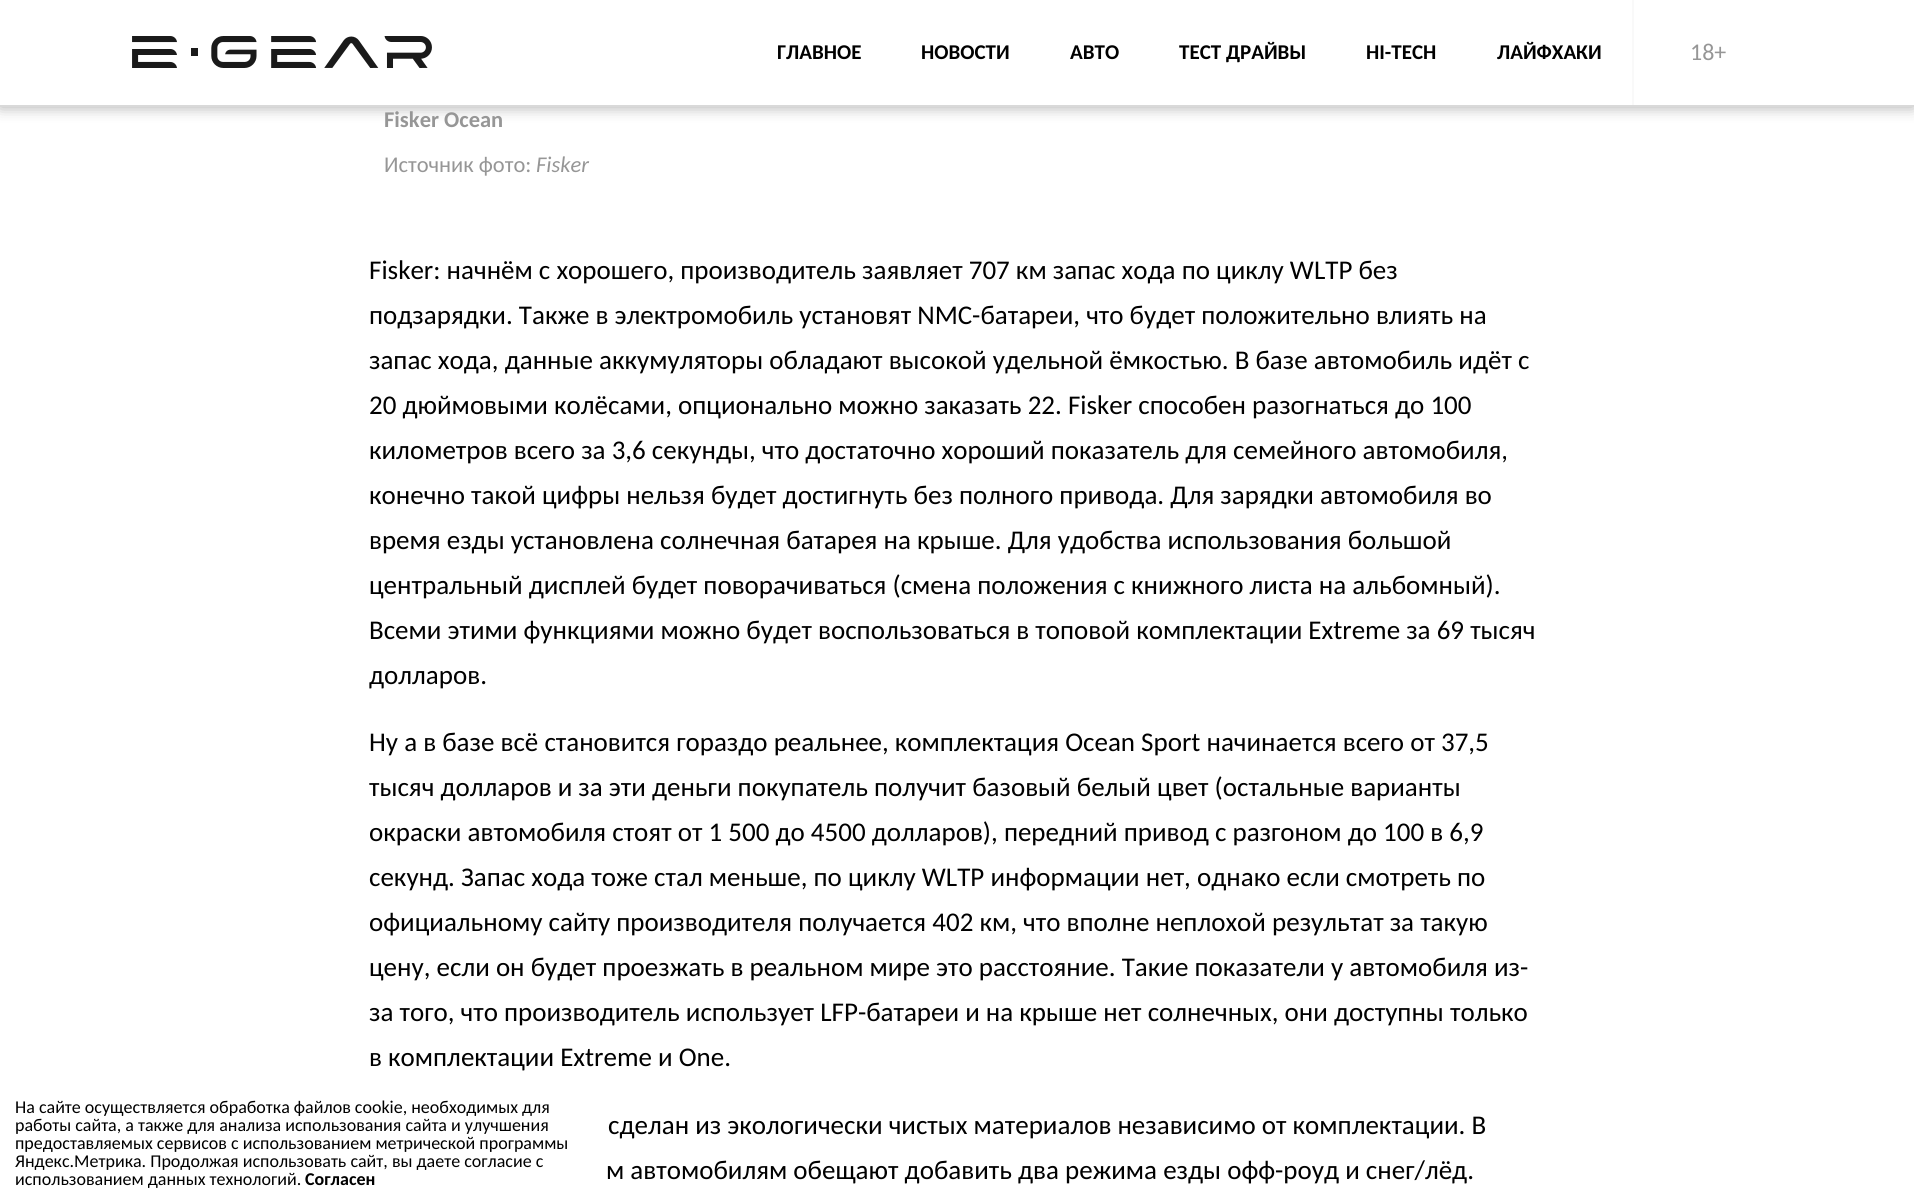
#include <cairo/cairo.h>
#include <math.h>
#include <stddef.h>

typedef struct { double x, y; const char *s; } line_t;
static cairo_t *cr;

static void rgb(unsigned color)
{
	cairo_set_source_rgb(cr, (color >> 16) / 255.0, (color >> 8 & 255) / 255.0, (color & 255) / 255.0);
}

static void rrect(double x, double y, double w, double h, double r)
{
	cairo_new_sub_path(cr);
	cairo_arc(cr, x + w - r, y + h - r, r, 0, M_PI / 2);
	cairo_arc(cr, x + r, y + h - r, r, M_PI / 2, M_PI);
	cairo_arc(cr, x + r, y + r, r, M_PI, 1.5 * M_PI);
	cairo_arc(cr, x + w - r, y + r, r, 1.5 * M_PI, 2 * M_PI);
	cairo_close_path(cr);
}

static void soft_shadow(double x, double y, double w, double h, double r, double blur, double alpha)
{
	cairo_push_group_with_content(cr, CAIRO_CONTENT_ALPHA);
	cairo_set_operator(cr, CAIRO_OPERATOR_SOURCE);
	for (int i = 15; i >= -15 && fmin(w, h) + blur * i / 3 > 0; i -= 2) {
		double e = blur * i / 6;
		cairo_set_source_rgba(cr, 0, 0, 0, alpha * erfc((i - 1) / 8.5) / 2);
		rrect(x - e, y - e, w + 2 * e, h + 2 * e, fmax(0, fmin(r + e + blur * .6, fmin(w, h) / 2 + e)));
		cairo_fill(cr);
	}
	cairo_pattern_t *soft = cairo_pop_group(cr);
	cairo_mask(cr, soft);
	cairo_pattern_destroy(soft);
}

static void image(const char *path, double x, double y, double w, double h)
{
	cairo_surface_t *image = cairo_image_surface_create_from_png(path);
	cairo_save(cr);
	cairo_set_source_surface(cr, image, x, y);
	cairo_rectangle(cr, x, y, w, h);
	cairo_fill(cr);
	cairo_restore(cr);
	cairo_surface_destroy(image);
}

int main(void) {
	cairo_surface_t *surface = cairo_image_surface_create(CAIRO_FORMAT_RGB24, 1914, 1203);
	cr = cairo_create(surface);
	cairo_font_options_t *options = cairo_font_options_create();
	cairo_font_options_set_hint_metrics(options, CAIRO_HINT_METRICS_OFF);
	cairo_font_options_set_hint_style(options, CAIRO_HINT_STYLE_NONE);
	cairo_set_font_options(cr, options);
	cairo_set_miter_limit(cr, 4);
	rgb(0xffffff);
	cairo_paint(cr);
	rgb(0x000000);
	soft_shadow(0, 0, 1914, 107, 0, 7.5, 0.33);
	rgb(0xffffff);
	cairo_rectangle(cr, 0, 0, 1914, 105);
	cairo_fill(cr);
	rgb(0xd9d9d9);
	cairo_rectangle(cr, 0, 105, 1914, 2);
	cairo_fill(cr);
	image("img/1.png", 132, 36, 300, 32);
	rgb(0xf9f9f9);
	cairo_rectangle(cr, 1632, 0, 2, 105);
	cairo_fill(cr);
	cairo_select_font_face(cr, "Carlito", CAIRO_FONT_SLANT_NORMAL, CAIRO_FONT_WEIGHT_NORMAL);
	cairo_set_font_size(cr, 18);
	rgb(0x000000);
	{
		static const line_t items[] = {
			{15, 1113, "На сайте осуществляется обработка файлов cookie, необходимых для"},
			{15, 1131, "работы сайта, а также для анализа использования сайта и улучшения"},
			{15, 1149, "предоставляемых сервисов с использованием метрической программы"},
			{15, 1167, "Яндекс.Метрика. Продолжая использовать сайт, вы даете согласие с"},
			{15, 1185, "использованием данных технологий."},
		};
		for (size_t i = 0; i < sizeof items / sizeof *items; i++) {
			cairo_move_to(cr, items[i].x, items[i].y);
			cairo_show_text(cr, items[i].s);
		}
	}
	cairo_select_font_face(cr, "Carlito", CAIRO_FONT_SLANT_NORMAL, CAIRO_FONT_WEIGHT_BOLD);
	cairo_move_to(cr, 305, 1185);
	cairo_show_text(cr, "Согласен");
	cairo_set_font_size(cr, 21);
	{
		static const line_t items[] = {
			{777, 59, "ГЛАВНОЕ"},
			{921, 59, "НОВОСТИ"},
			{1070, 59, "АВТО"},
			{1179, 59, "ТЕСТ ДРАЙВЫ"},
			{1366, 59, "HI-TECH"},
			{1497, 59, "ЛАЙФХАКИ"},
		};
		for (size_t i = 0; i < sizeof items / sizeof *items; i++) {
			cairo_move_to(cr, items[i].x, items[i].y);
			cairo_show_text(cr, items[i].s);
		}
	}
	cairo_select_font_face(cr, "Carlito", CAIRO_FONT_SLANT_NORMAL, CAIRO_FONT_WEIGHT_NORMAL);
	cairo_set_font_size(cr, 24);
	rgb(0x969696);
	cairo_move_to(cr, 1690, 60);
	cairo_show_text(cr, "18+");
	cairo_select_font_face(cr, "Carlito", CAIRO_FONT_SLANT_NORMAL, CAIRO_FONT_WEIGHT_BOLD);
	cairo_set_font_size(cr, 22.5);
	cairo_move_to(cr, 384, 127);
	cairo_show_text(cr, "Fisker Ocean");
	cairo_select_font_face(cr, "Carlito", CAIRO_FONT_SLANT_NORMAL, CAIRO_FONT_WEIGHT_NORMAL);
	cairo_move_to(cr, 384, 172);
	cairo_show_text(cr, "Источник фото:");
	cairo_select_font_face(cr, "Carlito", CAIRO_FONT_SLANT_ITALIC, CAIRO_FONT_WEIGHT_NORMAL);
	cairo_move_to(cr, 536, 172);
	cairo_show_text(cr, "Fisker");
	cairo_select_font_face(cr, "Carlito", CAIRO_FONT_SLANT_NORMAL, CAIRO_FONT_WEIGHT_NORMAL);
	cairo_set_font_size(cr, 27);
	rgb(0x000000);
	{
		static const line_t items[] = {
			{369, 279, "Fisker: начнём с хорошего, производитель заявляет 707 км запас хода по циклу WLTP без"},
			{369, 324, "подзарядки. Также в электромобиль установят NMC-батареи, что будет положительно влиять на"},
			{369, 369, "запас хода, данные аккумуляторы обладают высокой удельной ёмкостью. В базе автомобиль идёт с"},
			{369, 414, "20 дюймовыми колёсами, опционально можно заказать 22. Fisker способен разогнаться до 100"},
			{369, 459, "километров всего за 3,6 секунды, что достаточно хороший показатель для семейного автомобиля,"},
			{369, 504, "конечно такой цифры нельзя будет достигнуть без полного привода. Для зарядки автомобиля во"},
			{369, 549, "время езды установлена солнечная батарея на крыше. Для удобства использования большой"},
			{369, 594, "центральный дисплей будет поворачиваться (смена положения с книжного листа на альбомный)."},
			{369, 639, "Всеми этими функциями можно будет воспользоваться в топовой комплектации Extreme за 69 тысяч"},
			{369, 684, "долларов."},
			{369, 751, "Ну а в базе всё становится гораздо реальнее, комплектация Ocean Sport начинается всего от 37,5"},
			{369, 796, "тысяч долларов и за эти деньги покупатель получит базовый белый цвет (остальные варианты"},
			{369, 841, "окраски автомобиля стоят от 1 500 до 4500 долларов), передний привод с разгоном до 100 в 6,9"},
			{369, 886, "секунд. Запас хода тоже стал меньше, по циклу WLTP информации нет, однако если смотреть по"},
			{369, 931, "официальному сайту производителя получается 402 км, что вполне неплохой результат за такую"},
			{369, 976, "цену, если он будет проезжать в реальном мире это расстояние. Такие показатели у автомобиля из-"},
			{369, 1021, "за того, что производитель использует LFP-батареи и на крыше нет солнечных, они доступны только"},
			{369, 1066, "в комплектации Extreme и One."},
			{608, 1134, "сделан из экологически чистых материалов независимо от комплектации. В"},
			{606, 1179, "м автомобилям обещают добавить два режима езды офф-роуд и снег/лёд."},
		};
		for (size_t i = 0; i < sizeof items / sizeof *items; i++) {
			cairo_move_to(cr, items[i].x, items[i].y);
			cairo_show_text(cr, items[i].s);
		}
	}
	cairo_surface_write_to_png(surface, "page.png");
	cairo_font_options_destroy(options);
	cairo_destroy(cr);
	cairo_surface_destroy(surface);
	return 0;
}
